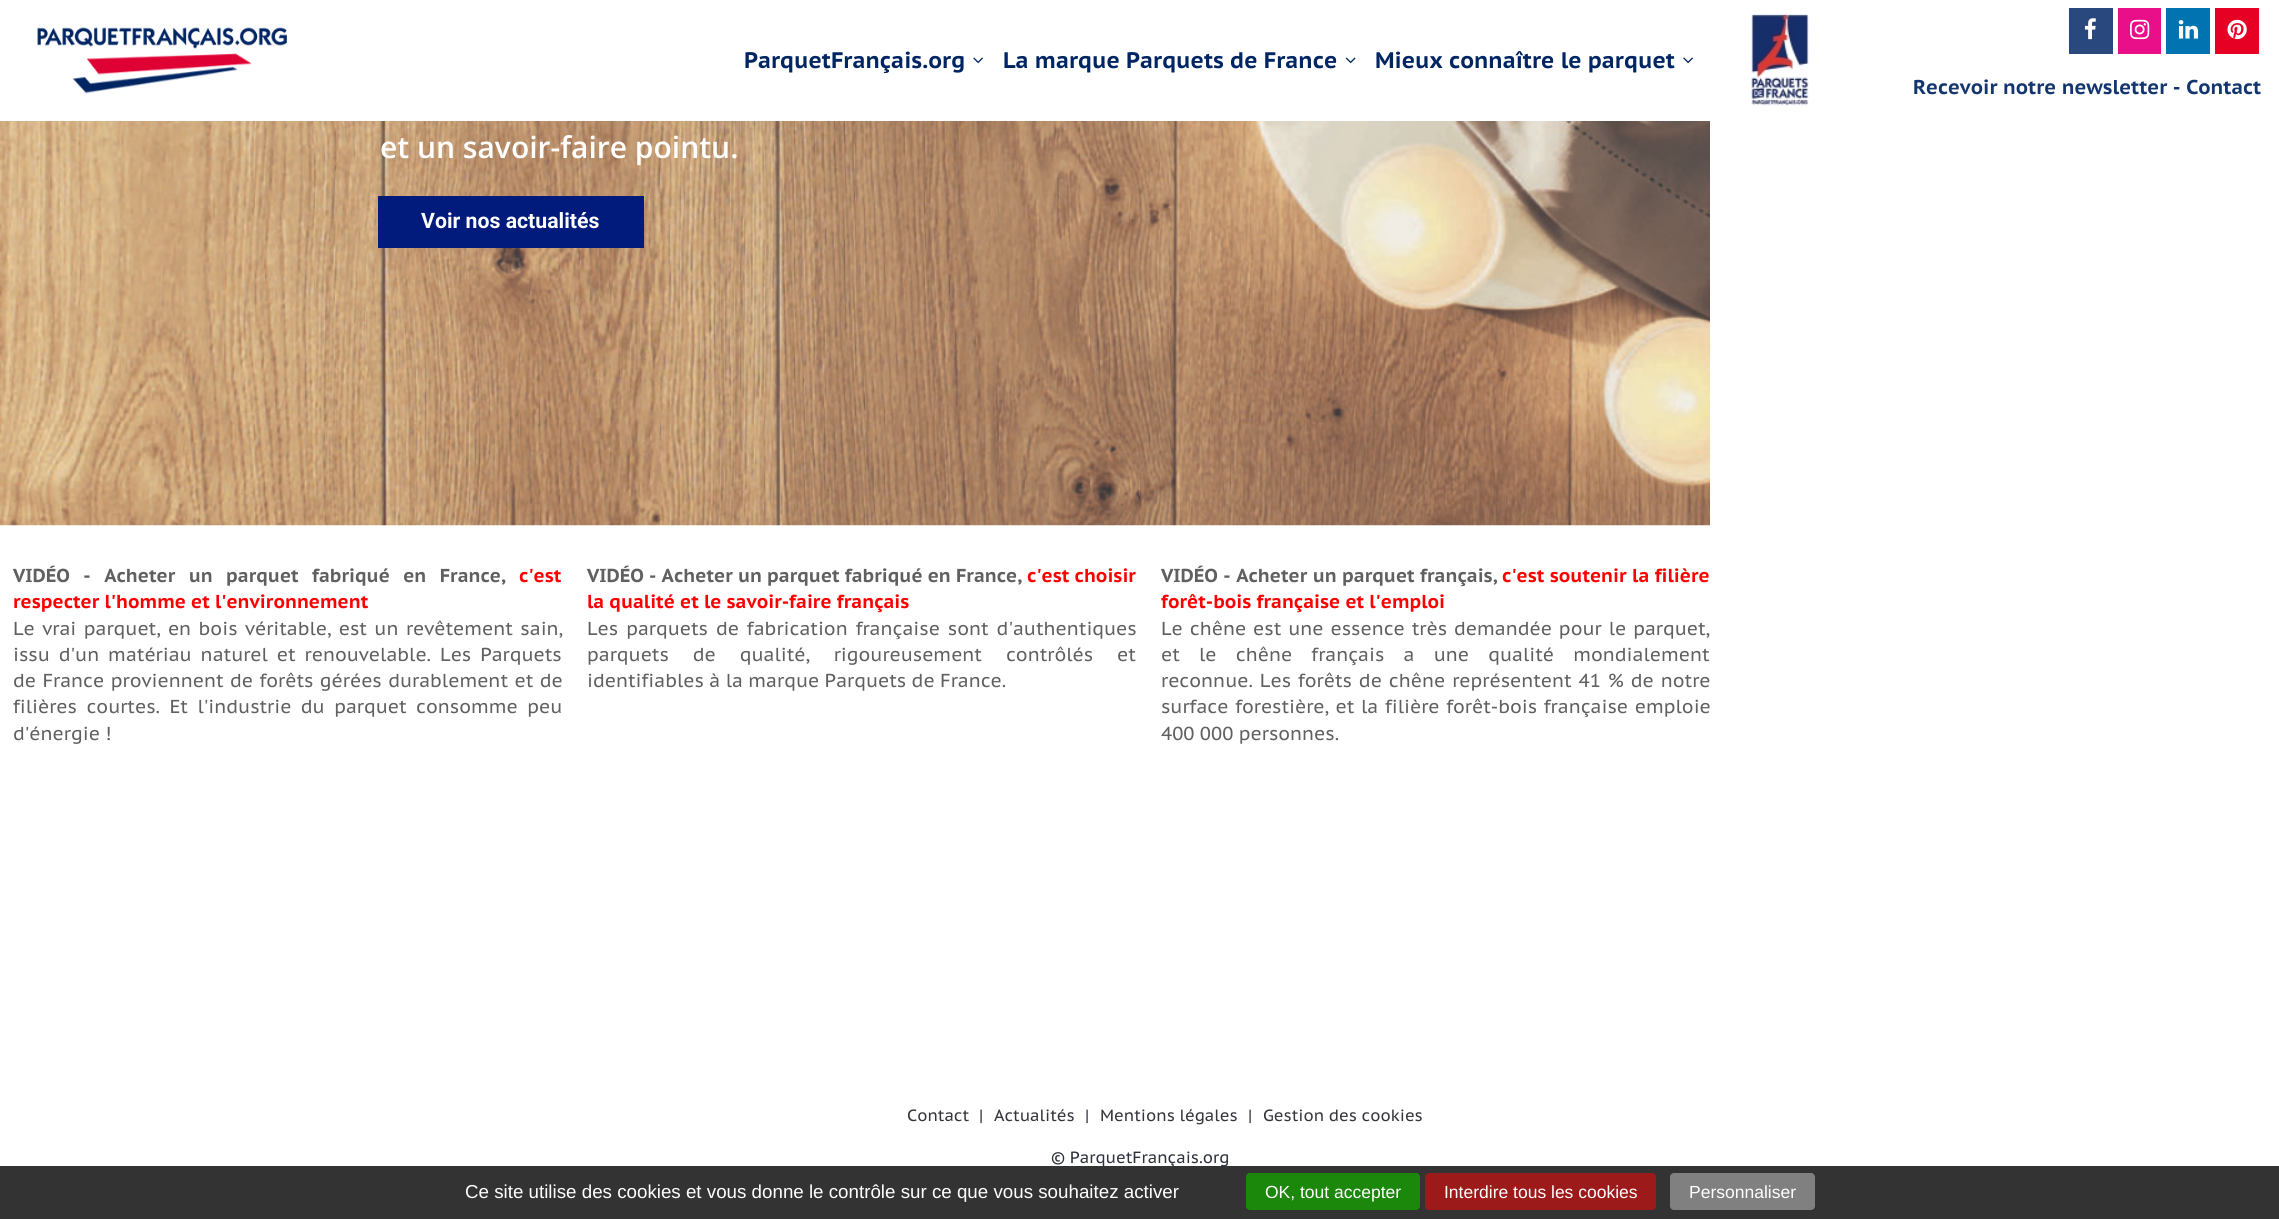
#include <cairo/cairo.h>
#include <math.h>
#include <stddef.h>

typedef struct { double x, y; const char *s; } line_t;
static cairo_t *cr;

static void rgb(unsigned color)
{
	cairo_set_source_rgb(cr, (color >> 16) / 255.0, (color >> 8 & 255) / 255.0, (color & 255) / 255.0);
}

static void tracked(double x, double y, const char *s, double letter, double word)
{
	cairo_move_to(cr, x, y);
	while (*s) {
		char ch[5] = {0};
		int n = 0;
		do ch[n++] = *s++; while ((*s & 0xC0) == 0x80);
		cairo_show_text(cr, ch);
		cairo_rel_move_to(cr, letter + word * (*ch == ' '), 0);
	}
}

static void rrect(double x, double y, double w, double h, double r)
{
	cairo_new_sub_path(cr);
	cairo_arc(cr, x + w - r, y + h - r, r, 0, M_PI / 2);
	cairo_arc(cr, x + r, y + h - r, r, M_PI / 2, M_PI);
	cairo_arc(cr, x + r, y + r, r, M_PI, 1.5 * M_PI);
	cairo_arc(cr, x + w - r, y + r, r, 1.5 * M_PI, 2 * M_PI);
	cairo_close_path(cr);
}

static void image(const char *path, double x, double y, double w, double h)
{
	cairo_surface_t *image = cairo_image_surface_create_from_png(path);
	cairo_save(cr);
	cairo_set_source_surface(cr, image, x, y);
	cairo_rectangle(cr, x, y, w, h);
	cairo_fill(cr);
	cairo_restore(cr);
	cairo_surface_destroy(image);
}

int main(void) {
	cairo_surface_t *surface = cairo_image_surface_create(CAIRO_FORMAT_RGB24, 2279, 1219);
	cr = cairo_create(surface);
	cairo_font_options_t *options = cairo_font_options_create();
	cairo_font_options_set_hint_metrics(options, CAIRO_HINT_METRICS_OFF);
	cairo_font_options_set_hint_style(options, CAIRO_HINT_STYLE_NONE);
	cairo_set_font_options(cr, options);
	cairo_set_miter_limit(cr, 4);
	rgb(0xffffff);
	cairo_paint(cr);
	image("img/1.png", 37, 27, 250, 67);
	image("img/2.png", 973, 57, 10, 7);
	image("img/3.png", 1345, 57, 11, 7);
	image("img/2.png", 1683, 57, 10, 7);
	image("img/4.png", 1751, 14, 58, 92);
	rgb(0x29487d);
	cairo_rectangle(cr, 2069, 8, 44, 46);
	cairo_fill(cr);
	image("img/5.png", 2084, 18, 12, 22);
	rgb(0xe80f89);
	cairo_rectangle(cr, 2118, 8, 43, 46);
	cairo_fill(cr);
	image("img/6.png", 2130, 19, 20, 21);
	rgb(0x0073b0);
	cairo_rectangle(cr, 2166, 8, 44, 46);
	cairo_fill(cr);
	image("img/7.png", 2178, 20, 21, 19);
	rgb(0xe60023);
	cairo_rectangle(cr, 2215, 8, 44, 46);
	cairo_fill(cr);
	image("img/8.png", 2227, 19, 20, 21);
	image("img/9.png", 0, 121, 1710, 405);
	rgb(0x001b7c);
	cairo_rectangle(cr, 378, 196, 266, 52);
	cairo_fill(cr);
	cairo_select_font_face(cr, "PT Sans Caption", CAIRO_FONT_SLANT_NORMAL, CAIRO_FONT_WEIGHT_BOLD);
	cairo_set_font_size(cr, 22.5);
	rgb(0x002563);
	{
		static const line_t items[] = {
			{744, 68, "ParquetFrançais.org"},
			{1003, 68, "La marque Parquets de France"},
			{1375, 68, "Mieux connaître le parquet"},
		};
		for (size_t i = 0; i < sizeof items / sizeof *items; i++) {
			cairo_move_to(cr, items[i].x, items[i].y);
			cairo_show_text(cr, items[i].s);
		}
	}
	cairo_set_font_size(cr, 20);
	rgb(0x14366f);
	cairo_move_to(cr, 1913, 94);
	cairo_show_text(cr, "Recevoir notre newsletter - Contact");
	cairo_select_font_face(cr, "Open Sans SemiBold", CAIRO_FONT_SLANT_NORMAL, CAIRO_FONT_WEIGHT_NORMAL);
	cairo_set_font_size(cr, 30);
	rgb(0xffffff);
	cairo_move_to(cr, 380, 158);
	cairo_show_text(cr, "et un savoir-faire pointu.");
	cairo_select_font_face(cr, "Roboto", CAIRO_FONT_SLANT_NORMAL, CAIRO_FONT_WEIGHT_BOLD);
	cairo_set_font_size(cr, 21.25);
	cairo_move_to(cr, 421, 228);
	cairo_show_text(cr, "Voir nos actualités");
	cairo_select_font_face(cr, "PT Sans Caption", CAIRO_FONT_SLANT_NORMAL, CAIRO_FONT_WEIGHT_BOLD);
	cairo_set_font_size(cr, 18.75);
	rgb(0x606060);
	tracked(13, 582, "VIDÉO - Acheter un parquet fabriqué en France,", 0, 8.25);
	rgb(0xff0000);
	cairo_move_to(cr, 519, 582);
	cairo_show_text(cr, "c'est");
	cairo_move_to(cr, 13, 608);
	cairo_show_text(cr, "respecter l'homme et l'environnement");
	cairo_select_font_face(cr, "PT Sans Caption", CAIRO_FONT_SLANT_NORMAL, CAIRO_FONT_WEIGHT_NORMAL);
	rgb(0x606060);
	tracked(13, 635, "Le vrai parquet, en bois véritable, est un revêtement sain,", 0, 2);
	tracked(13, 661, "issu d'un matériau naturel et renouvelable. Les Parquets", 0, 3.5);
	tracked(13, 687, "de France proviennent de forêts gérées durablement et de", 0, 1);
	tracked(13, 713, "filières courtes. Et l'industrie du parquet consomme peu", 0, 4);
	cairo_move_to(cr, 13, 740);
	cairo_show_text(cr, "d'énergie !");
	cairo_select_font_face(cr, "PT Sans Caption", CAIRO_FONT_SLANT_NORMAL, CAIRO_FONT_WEIGHT_BOLD);
	cairo_move_to(cr, 587, 582);
	cairo_show_text(cr, "VIDÉO - Acheter un parquet fabriqué en France,");
	rgb(0xff0000);
	cairo_move_to(cr, 1027, 582);
	cairo_show_text(cr, "c'est choisir");
	cairo_move_to(cr, 587, 608);
	cairo_show_text(cr, "la qualité et le savoir-faire français");
	cairo_select_font_face(cr, "PT Sans Caption", CAIRO_FONT_SLANT_NORMAL, CAIRO_FONT_WEIGHT_NORMAL);
	rgb(0x606060);
	tracked(587, 635, "Les parquets de fabrication française sont d'authentiques", 0, 2.5);
	tracked(587, 661, "parquets de qualité, rigoureusement contrôlés et", 0, 18.5);
	cairo_move_to(cr, 587, 687);
	cairo_show_text(cr, "identifiables à la marque Parquets de France.");
	cairo_select_font_face(cr, "PT Sans Caption", CAIRO_FONT_SLANT_NORMAL, CAIRO_FONT_WEIGHT_BOLD);
	tracked(1161, 582, "VIDÉO - Acheter un parquet français,", 0, 0.25);
	rgb(0xff0000);
	tracked(1502, 582, "c'est soutenir la filière", 0, 0.25);
	cairo_move_to(cr, 1161, 608);
	cairo_show_text(cr, "forêt-bois française et l'emploi");
	cairo_select_font_face(cr, "PT Sans Caption", CAIRO_FONT_SLANT_NORMAL, CAIRO_FONT_WEIGHT_NORMAL);
	rgb(0x606060);
	tracked(1161, 635, "Le chêne est une essence très demandée pour le parquet,", 0, 1.5);
	tracked(1161, 661, "et le chêne français a une qualité mondialement", 0, 13.75);
	tracked(1161, 687, "reconnue. Les forêts de chêne représentent 41 % de notre", 0, 1.5);
	tracked(1161, 713, "surface forestière, et la filière forêt-bois française emploie", 0, 1.25);
	cairo_move_to(cr, 1161, 740);
	cairo_show_text(cr, "400 000 personnes.");
	cairo_set_font_size(cr, 16.25);
	rgb(0x34343c);
	{
		static const line_t items[] = {
			{907, 1121, "Contact"},
			{979, 1121, "|"},
			{994, 1121, "Actualités"},
			{1085, 1121, "|"},
			{1100, 1121, "Mentions légales"},
			{1248, 1121, "|"},
			{1263, 1121, "Gestion des cookies"},
		};
		for (size_t i = 0; i < sizeof items / sizeof *items; i++) {
			cairo_move_to(cr, items[i].x, items[i].y);
			cairo_show_text(cr, items[i].s);
		}
	}
	rgb(0x2d313a);
	cairo_move_to(cr, 1051, 1163);
	cairo_show_text(cr, "© ParquetFrançais.org");
	rgb(0x333333);
	cairo_rectangle(cr, 0, 1166, 2279, 53);
	cairo_fill(cr);
	cairo_select_font_face(cr, "Liberation Sans", CAIRO_FONT_SLANT_NORMAL, CAIRO_FONT_WEIGHT_NORMAL);
	cairo_set_font_size(cr, 18.75);
	rgb(0xffffff);
	cairo_move_to(cr, 465, 1198);
	cairo_show_text(cr, "Ce site utilise des cookies et vous donne le contrôle sur ce que vous souhaitez activer");
	rgb(0x1b870b);
	rrect(1246, 1173, 174, 37, 4);
	cairo_fill(cr);
	cairo_set_font_size(cr, 17.5);
	rgb(0xffffff);
	cairo_move_to(cr, 1265, 1198);
	cairo_show_text(cr, "OK, tout accepter");
	rgb(0x9c1a1a);
	rrect(1425, 1173, 231, 37, 4);
	cairo_fill(cr);
	rgb(0xffffff);
	cairo_move_to(cr, 1444, 1198);
	cairo_show_text(cr, "Interdire tous les cookies");
	rgb(0x808080);
	rrect(1670, 1173, 145, 37, 4);
	cairo_fill(cr);
	rgb(0xffffff);
	cairo_move_to(cr, 1689, 1198);
	cairo_show_text(cr, "Personnaliser");
	cairo_surface_write_to_png(surface, "page.png");
	cairo_font_options_destroy(options);
	cairo_destroy(cr);
	cairo_surface_destroy(surface);
	return 0;
}
